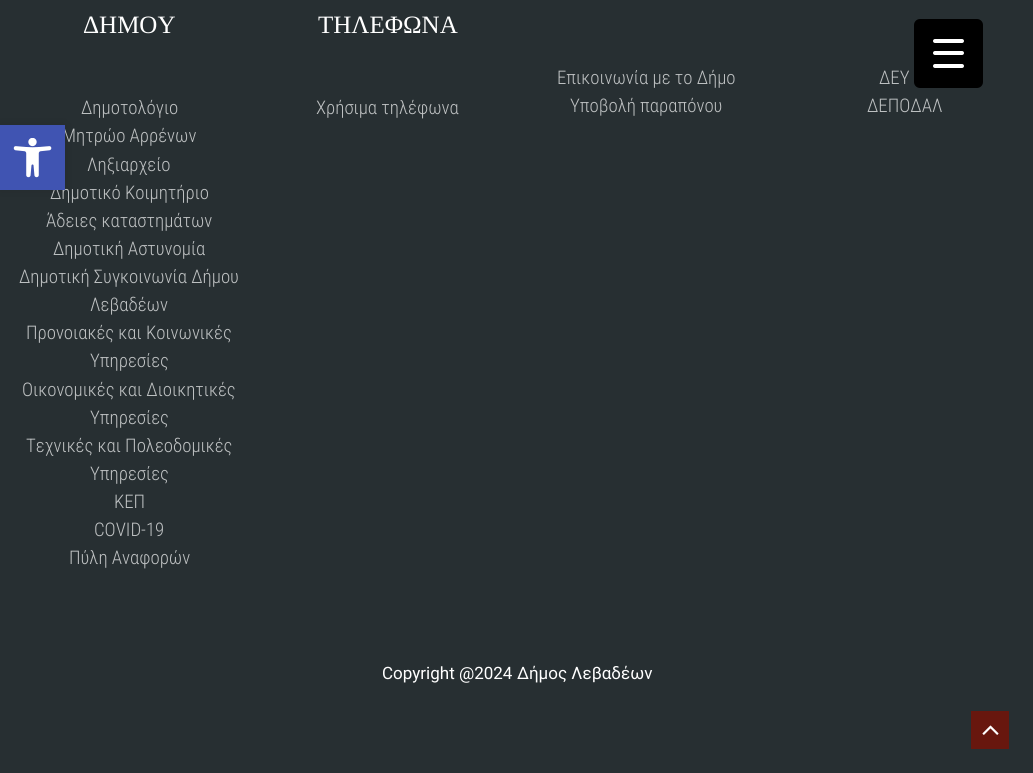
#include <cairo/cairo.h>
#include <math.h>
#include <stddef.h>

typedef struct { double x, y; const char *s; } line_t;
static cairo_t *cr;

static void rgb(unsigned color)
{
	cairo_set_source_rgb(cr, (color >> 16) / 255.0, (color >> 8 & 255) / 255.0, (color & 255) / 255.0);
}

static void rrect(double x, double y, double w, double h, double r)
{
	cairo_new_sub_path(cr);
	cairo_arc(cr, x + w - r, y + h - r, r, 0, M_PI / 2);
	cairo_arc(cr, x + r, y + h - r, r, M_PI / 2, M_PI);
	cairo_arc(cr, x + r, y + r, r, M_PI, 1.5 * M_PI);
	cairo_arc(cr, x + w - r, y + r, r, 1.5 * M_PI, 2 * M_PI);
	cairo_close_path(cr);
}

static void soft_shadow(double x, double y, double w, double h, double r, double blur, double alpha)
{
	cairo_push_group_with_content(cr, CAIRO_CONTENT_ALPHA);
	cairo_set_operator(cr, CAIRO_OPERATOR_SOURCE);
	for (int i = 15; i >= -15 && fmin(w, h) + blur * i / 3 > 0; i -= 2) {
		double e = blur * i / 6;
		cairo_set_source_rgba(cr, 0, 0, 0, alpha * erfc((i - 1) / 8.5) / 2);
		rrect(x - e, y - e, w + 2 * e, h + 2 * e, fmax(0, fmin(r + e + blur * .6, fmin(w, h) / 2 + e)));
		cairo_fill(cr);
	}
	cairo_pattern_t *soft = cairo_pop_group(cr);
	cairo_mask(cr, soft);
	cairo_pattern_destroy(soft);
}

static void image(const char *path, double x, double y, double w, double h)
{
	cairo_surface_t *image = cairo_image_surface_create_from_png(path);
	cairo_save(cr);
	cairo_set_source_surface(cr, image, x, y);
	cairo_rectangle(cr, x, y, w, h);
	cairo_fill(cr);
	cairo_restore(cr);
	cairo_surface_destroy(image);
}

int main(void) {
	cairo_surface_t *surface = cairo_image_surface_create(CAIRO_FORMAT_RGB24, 1033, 773);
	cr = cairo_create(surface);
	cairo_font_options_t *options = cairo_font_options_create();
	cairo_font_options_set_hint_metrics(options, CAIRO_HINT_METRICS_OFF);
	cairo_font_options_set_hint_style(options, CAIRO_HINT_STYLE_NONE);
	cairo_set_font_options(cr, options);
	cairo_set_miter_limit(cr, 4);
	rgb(0x272f32);
	cairo_paint(cr);
	rgb(0x68170e);
	cairo_rectangle(cr, 971, 711, 38, 38);
	cairo_fill(cr);
	image("img/1.png", 982, 725, 17, 10);
	rgb(0x000000);
	rrect(914, 19, 69, 69, 6);
	cairo_fill(cr);
	rgb(0xffffff);
	rrect(933, 51, 31, 4, 2);
	cairo_fill(cr);
	rrect(933, 39, 31, 4, 2);
	cairo_fill(cr);
	rrect(933, 64, 31, 4, 2);
	cairo_fill(cr);
	rgb(0x000000);
	soft_shadow(0, 125, 65, 65, 0, 6, 0.1);
	cairo_select_font_face(cr, "Liberation Serif", CAIRO_FONT_SLANT_NORMAL, CAIRO_FONT_WEIGHT_NORMAL);
	cairo_set_font_size(cr, 25);
	rgb(0xffffff);
	cairo_move_to(cr, 83, 33);
	cairo_show_text(cr, "ΔΗΜΟΥ");
	cairo_select_font_face(cr, "Roboto Condensed Light", CAIRO_FONT_SLANT_NORMAL, CAIRO_FONT_WEIGHT_NORMAL);
	cairo_set_font_size(cr, 18.75);
	rgb(0xbec1c2);
	{
		static const line_t items[] = {
			{81, 114, "Δημοτολόγιο"},
			{62, 142, "Μητρώο Αρρένων"},
			{87, 171, "Ληξιαρχείο"},
			{50, 199, "Δημοτικό Kοιμητήριο"},
			{46, 227, "Άδειες καταστημάτων"},
			{53, 255, "Δημοτική Αστυνομία"},
			{19, 283, "Δημοτική Συγκοινωνία Δήμου"},
			{90, 311, "Λεβαδέων"},
			{26, 339, "Προνοιακές και Κοινωνικές"},
			{90, 367, "Υπηρεσίες"},
			{22, 396, "Οικονομικές και Διοικητικές"},
			{90, 424, "Υπηρεσίες"},
			{26, 452, "Τεχνικές και Πολεοδομικές"},
			{90, 480, "Υπηρεσίες"},
			{114, 508, "ΚΕΠ"},
			{94, 536, "COVID-19"},
			{69, 564, "Πύλη Αναφορών"},
		};
		for (size_t i = 0; i < sizeof items / sizeof *items; i++) {
			cairo_move_to(cr, items[i].x, items[i].y);
			cairo_show_text(cr, items[i].s);
		}
	}
	cairo_select_font_face(cr, "Liberation Serif", CAIRO_FONT_SLANT_NORMAL, CAIRO_FONT_WEIGHT_NORMAL);
	cairo_set_font_size(cr, 25);
	rgb(0xffffff);
	cairo_move_to(cr, 318, 33);
	cairo_show_text(cr, "ΤΗΛΕΦΩΝΑ");
	cairo_select_font_face(cr, "Roboto Condensed Light", CAIRO_FONT_SLANT_NORMAL, CAIRO_FONT_WEIGHT_NORMAL);
	cairo_set_font_size(cr, 18.75);
	rgb(0xbec1c2);
	{
		static const line_t items[] = {
			{316, 114, "Χρήσιμα τηλέφωνα"},
			{557, 84, "Επικοινωνία με το Δήμο"},
			{570, 112, "Υποβολή παραπόνου"},
			{879, 84, "ΔΕΥ"},
			{867, 112, "ΔΕΠΟΔΑΛ"},
		};
		for (size_t i = 0; i < sizeof items / sizeof *items; i++) {
			cairo_move_to(cr, items[i].x, items[i].y);
			cairo_show_text(cr, items[i].s);
		}
	}
	cairo_select_font_face(cr, "Roboto", CAIRO_FONT_SLANT_NORMAL, CAIRO_FONT_WEIGHT_NORMAL);
	cairo_set_font_size(cr, 17);
	rgb(0xffffff);
	cairo_move_to(cr, 382, 679);
	cairo_show_text(cr, "Copyright @2024");
	cairo_select_font_face(cr, "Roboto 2", CAIRO_FONT_SLANT_NORMAL, CAIRO_FONT_WEIGHT_NORMAL);
	cairo_move_to(cr, 517, 679);
	cairo_show_text(cr, "Δήμος Λεβαδέων");
	rgb(0x4054b2);
	cairo_rectangle(cr, 0, 125, 65, 65);
	cairo_fill(cr);
	image("img/2.png", 13, 138, 39, 40);
	cairo_surface_write_to_png(surface, "page.png");
	cairo_font_options_destroy(options);
	cairo_destroy(cr);
	cairo_surface_destroy(surface);
	return 0;
}
